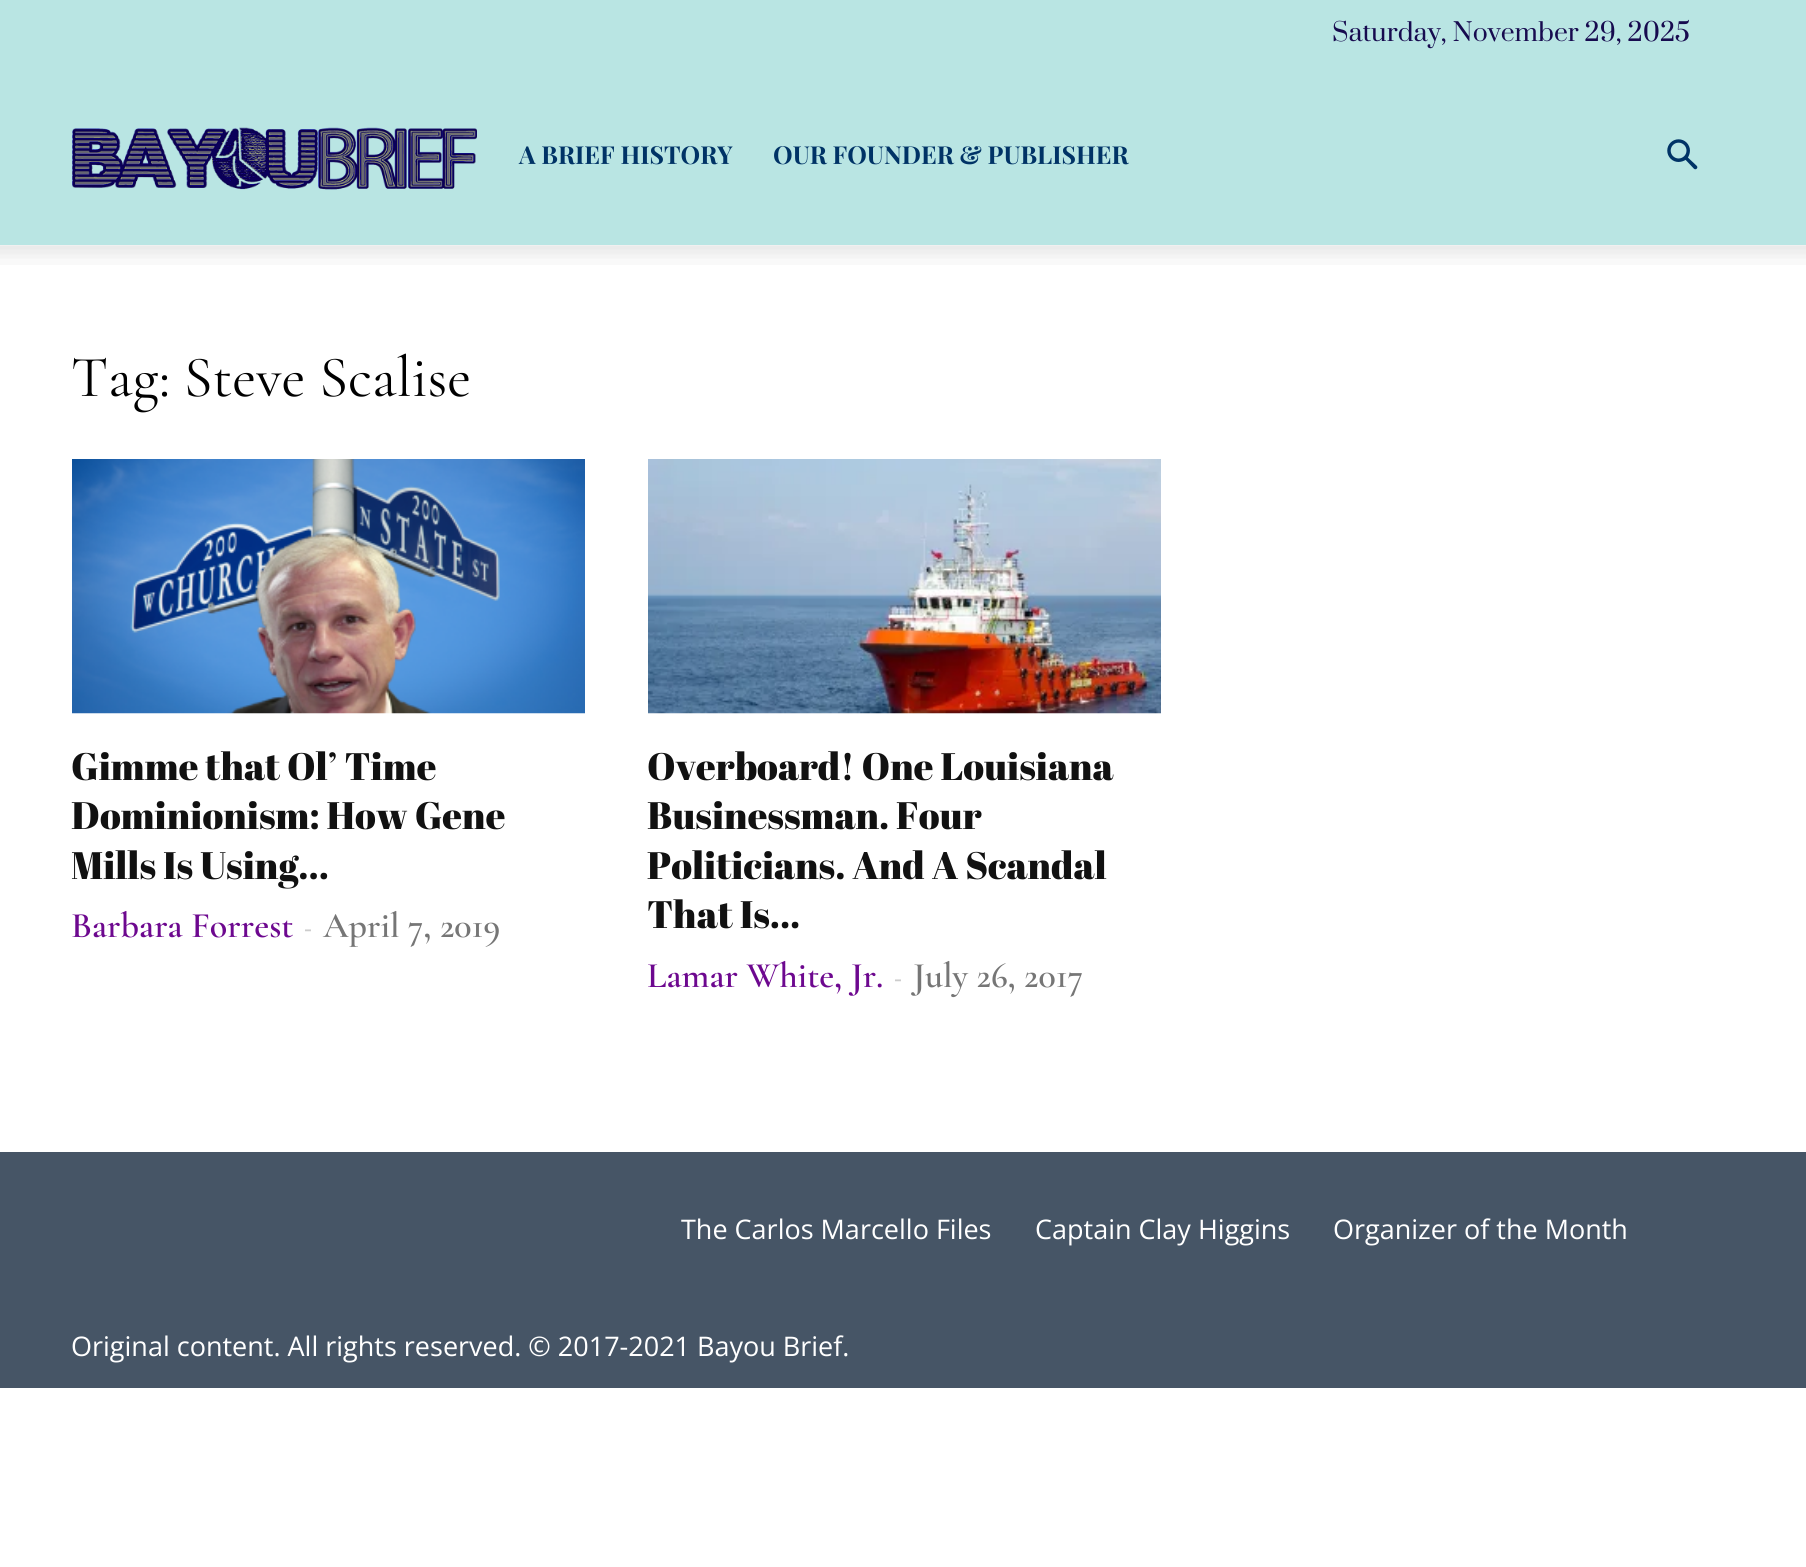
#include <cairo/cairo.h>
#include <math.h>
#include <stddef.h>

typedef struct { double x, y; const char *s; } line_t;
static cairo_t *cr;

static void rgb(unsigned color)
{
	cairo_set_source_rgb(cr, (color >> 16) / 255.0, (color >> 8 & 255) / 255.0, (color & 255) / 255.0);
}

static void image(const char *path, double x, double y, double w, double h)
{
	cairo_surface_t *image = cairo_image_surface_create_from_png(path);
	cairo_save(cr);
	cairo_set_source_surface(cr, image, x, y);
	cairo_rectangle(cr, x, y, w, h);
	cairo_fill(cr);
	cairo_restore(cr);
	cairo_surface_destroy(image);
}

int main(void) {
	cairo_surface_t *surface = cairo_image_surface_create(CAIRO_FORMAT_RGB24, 1806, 1567);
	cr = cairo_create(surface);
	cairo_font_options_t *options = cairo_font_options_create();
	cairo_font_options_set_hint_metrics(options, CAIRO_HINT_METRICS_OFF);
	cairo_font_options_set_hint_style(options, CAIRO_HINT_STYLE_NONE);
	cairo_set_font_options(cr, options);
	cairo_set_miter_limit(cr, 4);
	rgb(0xffffff);
	cairo_paint(cr);
	rgb(0xb9e5e3);
	cairo_rectangle(cr, 0, 0, 1806, 245);
	cairo_fill(cr);
	image("img/1.png", 72, 127, 405, 63);
	image("img/2.png", 1667, 139, 31, 31);
	image("img/3.png", 0, 245, 1806, 20);
	image("img/4.png", 72, 459, 513, 255);
	image("img/5.png", 648, 459, 513, 255);
	rgb(0x465566);
	cairo_rectangle(cr, 0, 1152, 1806, 236);
	cairo_fill(cr);
	cairo_select_font_face(cr, "Prata", CAIRO_FONT_SLANT_NORMAL, CAIRO_FONT_WEIGHT_NORMAL);
	cairo_set_font_size(cr, 24.75);
	rgb(0x170b4f);
	cairo_move_to(cr, 1332, 41);
	cairo_show_text(cr, "Saturday, November 29, 2025");
	cairo_select_font_face(cr, "Playfair Display", CAIRO_FONT_SLANT_NORMAL, CAIRO_FONT_WEIGHT_BOLD);
	rgb(0x003366);
	cairo_move_to(cr, 519, 164);
	cairo_show_text(cr, "A BRIEF HISTORY");
	cairo_move_to(cr, 773, 164);
	cairo_show_text(cr, "OUR FOUNDER & PUBLISHER");
	cairo_select_font_face(cr, "Cormorant Garamond", CAIRO_FONT_SLANT_NORMAL, CAIRO_FONT_WEIGHT_NORMAL);
	cairo_set_font_size(cr, 58.5);
	rgb(0x000000);
	cairo_move_to(cr, 71, 396);
	cairo_show_text(cr, "Tag: Steve Scalise");
	cairo_select_font_face(cr, "Abril Fatface", CAIRO_FONT_SLANT_NORMAL, CAIRO_FONT_WEIGHT_NORMAL);
	cairo_set_font_size(cr, 38.25);
	rgb(0x111111);
	{
		static const line_t items[] = {
			{71, 780, "Gimme that Ol’ Time"},
			{71, 829, "Dominionism: How Gene"},
			{71, 879, "Mills Is Using..."},
		};
		for (size_t i = 0; i < sizeof items / sizeof *items; i++) {
			cairo_move_to(cr, items[i].x, items[i].y);
			cairo_show_text(cr, items[i].s);
		}
	}
	cairo_select_font_face(cr, "Cormorant Garamond SemiBold", CAIRO_FONT_SLANT_NORMAL, CAIRO_FONT_WEIGHT_NORMAL);
	cairo_set_font_size(cr, 36);
	rgb(0x6d088f);
	cairo_move_to(cr, 71, 937);
	cairo_show_text(cr, "Barbara Forrest");
	cairo_select_font_face(cr, "Open Sans", CAIRO_FONT_SLANT_NORMAL, CAIRO_FONT_WEIGHT_NORMAL);
	cairo_set_font_size(cr, 24.75);
	rgb(0xcccccc);
	cairo_move_to(cr, 304, 937);
	cairo_show_text(cr, "-");
	cairo_select_font_face(cr, "Cormorant Garamond SemiBold", CAIRO_FONT_SLANT_NORMAL, CAIRO_FONT_WEIGHT_NORMAL);
	cairo_set_font_size(cr, 36);
	rgb(0x767676);
	cairo_move_to(cr, 323, 937);
	cairo_show_text(cr, "April 7, 2019");
	cairo_select_font_face(cr, "Abril Fatface", CAIRO_FONT_SLANT_NORMAL, CAIRO_FONT_WEIGHT_NORMAL);
	cairo_set_font_size(cr, 38.25);
	rgb(0x111111);
	{
		static const line_t items[] = {
			{647, 780, "Overboard! One Louisiana"},
			{647, 829, "Businessman. Four"},
			{647, 879, "Politicians. And A Scandal"},
			{647, 928, "That Is..."},
		};
		for (size_t i = 0; i < sizeof items / sizeof *items; i++) {
			cairo_move_to(cr, items[i].x, items[i].y);
			cairo_show_text(cr, items[i].s);
		}
	}
	cairo_select_font_face(cr, "Cormorant Garamond SemiBold", CAIRO_FONT_SLANT_NORMAL, CAIRO_FONT_WEIGHT_NORMAL);
	cairo_set_font_size(cr, 36);
	rgb(0x6d088f);
	cairo_move_to(cr, 647, 987);
	cairo_show_text(cr, "Lamar White, Jr.");
	cairo_select_font_face(cr, "Open Sans", CAIRO_FONT_SLANT_NORMAL, CAIRO_FONT_WEIGHT_NORMAL);
	cairo_set_font_size(cr, 24.75);
	rgb(0xcccccc);
	cairo_move_to(cr, 894, 987);
	cairo_show_text(cr, "-");
	cairo_select_font_face(cr, "Cormorant Garamond SemiBold", CAIRO_FONT_SLANT_NORMAL, CAIRO_FONT_WEIGHT_NORMAL);
	cairo_set_font_size(cr, 36);
	rgb(0x767676);
	cairo_move_to(cr, 913, 987);
	cairo_show_text(cr, "July 26, 2017");
	cairo_select_font_face(cr, "Open Sans", CAIRO_FONT_SLANT_NORMAL, CAIRO_FONT_WEIGHT_NORMAL);
	cairo_set_font_size(cr, 27);
	rgb(0xffffff);
	{
		static const line_t items[] = {
			{681, 1239, "The Carlos Marcello Files"},
			{1035, 1239, "Captain Clay Higgins"},
			{1333, 1239, "Organizer of the Month"},
			{71, 1356, "Original content. All rights reserved. © 2017-2021 Bayou Brief."},
		};
		for (size_t i = 0; i < sizeof items / sizeof *items; i++) {
			cairo_move_to(cr, items[i].x, items[i].y);
			cairo_show_text(cr, items[i].s);
		}
	}
	cairo_surface_write_to_png(surface, "page.png");
	cairo_font_options_destroy(options);
	cairo_destroy(cr);
	cairo_surface_destroy(surface);
	return 0;
}
